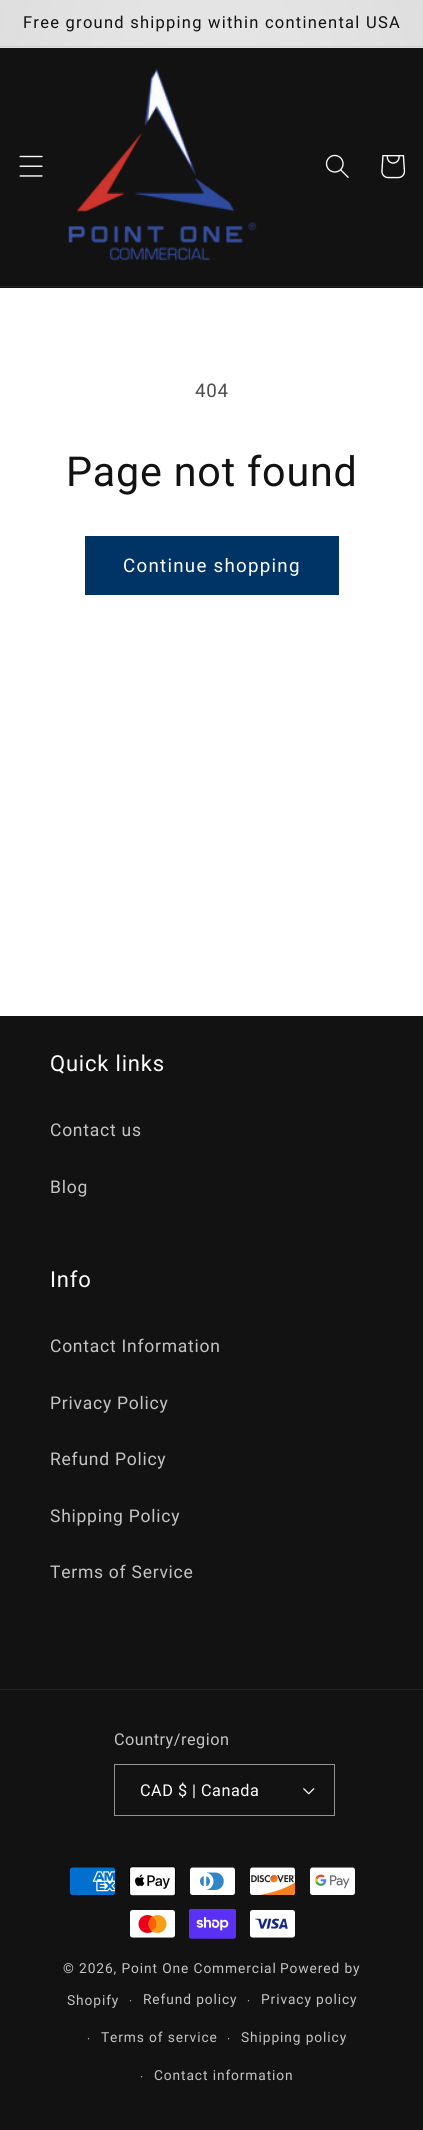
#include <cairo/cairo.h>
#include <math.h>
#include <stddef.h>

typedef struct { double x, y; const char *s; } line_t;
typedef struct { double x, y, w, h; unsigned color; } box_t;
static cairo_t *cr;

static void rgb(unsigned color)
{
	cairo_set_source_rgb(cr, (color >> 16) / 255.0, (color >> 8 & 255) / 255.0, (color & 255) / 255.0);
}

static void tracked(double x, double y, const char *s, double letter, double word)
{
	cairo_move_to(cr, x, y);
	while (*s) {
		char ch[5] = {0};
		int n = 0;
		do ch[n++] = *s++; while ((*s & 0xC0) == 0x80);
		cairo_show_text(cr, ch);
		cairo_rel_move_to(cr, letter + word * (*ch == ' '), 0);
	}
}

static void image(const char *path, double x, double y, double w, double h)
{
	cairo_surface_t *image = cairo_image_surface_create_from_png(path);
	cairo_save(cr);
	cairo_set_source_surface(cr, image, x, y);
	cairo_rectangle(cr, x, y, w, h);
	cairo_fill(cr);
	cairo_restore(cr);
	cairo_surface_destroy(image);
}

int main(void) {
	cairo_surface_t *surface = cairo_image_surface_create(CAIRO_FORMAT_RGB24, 423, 2130);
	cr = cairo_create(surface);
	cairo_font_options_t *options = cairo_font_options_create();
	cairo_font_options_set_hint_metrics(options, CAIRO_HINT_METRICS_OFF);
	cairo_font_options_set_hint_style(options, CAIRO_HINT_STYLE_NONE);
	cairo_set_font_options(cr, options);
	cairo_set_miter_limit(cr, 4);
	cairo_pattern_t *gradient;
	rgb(0xffffff);
	cairo_paint(cr);
	gradient = cairo_pattern_create_radial(0, 0, 0, 0, 0, 1);
	cairo_pattern_set_matrix(gradient, &(cairo_matrix_t){1.0 / 300, 0, 0, 1.0 / 1506, -1.0 * 212 / 300, -1.0 * 1065 / 1506});
	cairo_pattern_add_color_stop_rgba(gradient, 0, 0.953, 0.953, 0.953, 1);
	cairo_pattern_add_color_stop_rgba(gradient, 1, 0.871, 0.871, 0.871, 1);
	cairo_set_source(cr, gradient);
	cairo_pattern_destroy(gradient);
	cairo_rectangle(cr, 0, 0, 423, 48);
	cairo_fill(cr);
	gradient = cairo_pattern_create_radial(0, 0, 0, 0, 0, 1);
	cairo_pattern_set_matrix(gradient, &(cairo_matrix_t){1.0 / 300, 0, 0, 1.0 / 1506, -1.0 * 212 / 300, -1.0 * 1065 / 1506});
	cairo_pattern_add_color_stop_rgba(gradient, 0, 0.882, 0.882, 0.882, 1);
	cairo_pattern_add_color_stop_rgba(gradient, 1, 0.808, 0.808, 0.808, 1);
	cairo_set_source(cr, gradient);
	cairo_pattern_destroy(gradient);
	cairo_rectangle(cr, 0, 46, 423, 1);
	cairo_fill(cr);
	rgb(0x121212);
	cairo_rectangle(cr, 0, 48, 423, 240);
	cairo_fill(cr);
	rgb(0x252525);
	cairo_rectangle(cr, 0, 286, 423, 1);
	cairo_fill(cr);
	image("img/1.png", 19, 155, 24, 22);
	image("img/2.png", 68, 68, 189, 193);
	image("img/3.png", 325, 154, 24, 24);
	image("img/4.png", 381, 155, 25, 24);
	{
		static const box_t items[] = {
			{85, 536, 254, 59, 0x003366},
			{0, 1016, 423, 1114, 0x121212},
			{0, 1689, 423, 1, 0x252525},
		};
		for (size_t i = 0; i < sizeof items / sizeof *items; i++) {
			rgb(items[i].color);
			cairo_rectangle(cr, items[i].x, items[i].y, items[i].w, items[i].h);
			cairo_fill(cr);
		}
	}
	image("img/5.png", 303, 1788, 12, 7);
	cairo_rectangle(cr, 114.5, 1764.5, 220, 51);
	rgb(0x949494);
	cairo_set_line_width(cr, 1);
	cairo_stroke(cr);
	image("img/6.png", 70, 1867, 45, 28);
	image("img/7.png", 129, 1866, 47, 30);
	image("img/8.png", 190, 1867, 45, 28);
	image("img/9.png", 250, 1867, 46, 28);
	image("img/10.png", 310, 1867, 45, 28);
	image("img/11.png", 130, 1910, 45, 28);
	image("img/12.png", 189, 1909, 47, 30);
	image("img/13.png", 250, 1910, 45, 28);
	cairo_select_font_face(cr, "Roboto", CAIRO_FONT_SLANT_NORMAL, CAIRO_FONT_WEIGHT_NORMAL);
	cairo_set_font_size(cr, 16.5);
	rgb(0x121212);
	tracked(23, 28, "Free ground shipping within continental USA", 1.25, 0);
	cairo_set_font_size(cr, 18.75);
	rgb(0x4d4d4d);
	tracked(195, 397, "404", 0.75, 0);
	cairo_set_font_size(cr, 41.25);
	rgb(0x121212);
	tracked(66, 486, "Page not found", 0.8, 0);
	cairo_set_font_size(cr, 18.75);
	rgb(0xffffff);
	tracked(123, 572, "Continue shopping", 1.25, 0);
	cairo_set_font_size(cr, 22);
	tracked(50, 1071, "Quick links", 0.8, 0);
	cairo_set_font_size(cr, 17.5);
	rgb(0xc4c4c4);
	tracked(50, 1136, "Contact us", 0.75, 0);
	tracked(50, 1193, "Blog", 0.75, 0);
	cairo_set_font_size(cr, 22);
	rgb(0xffffff);
	tracked(50, 1287, "Info", 0.8, 0);
	cairo_set_font_size(cr, 17.5);
	rgb(0xc4c4c4);
	{
		static const line_t items[] = {
			{50, 1352, "Contact Information"},
			{50, 1409, "Privacy Policy"},
			{50, 1465, "Refund Policy"},
			{50, 1522, "Shipping Policy"},
			{50, 1578, "Terms of Service"},
		};
		for (size_t i = 0; i < sizeof items / sizeof *items; i++) {
			tracked(items[i].x, items[i].y, items[i].s, 0.75, 0);
		}
	}
	cairo_set_font_size(cr, 16.25);
	tracked(114, 1745, "Country/region", 0.5, 0);
	rgb(0xffffff);
	tracked(140, 1796, "CAD $ | Canada", 0.5, 0);
	cairo_set_font_size(cr, 13.75);
	rgb(0xc4c4c4);
	tracked(63, 1973, "© 2026, Point One Commercial", 0.9, 0);
	tracked(280, 1973, "Powered by", 0.9, 0);
	cairo_set_font_size(cr, 12);
	tracked(129, 2005, "·", 0.9, 0);
	cairo_set_font_size(cr, 13.75);
	tracked(143, 2004, "Refund policy", 0.9, 0);
	cairo_set_font_size(cr, 12);
	tracked(247, 2005, "·", 0.9, 0);
	cairo_set_font_size(cr, 13.75);
	tracked(261, 2004, "Privacy policy", 0.9, 0);
	cairo_set_font_size(cr, 12);
	tracked(87, 2043, "·", 0.9, 0);
	cairo_set_font_size(cr, 13.75);
	tracked(101, 2042, "Terms of service", 0.9, 0);
	cairo_set_font_size(cr, 12);
	tracked(227, 2043, "·", 0.9, 0);
	cairo_set_font_size(cr, 13.75);
	tracked(241, 2042, "Shipping policy", 0.9, 0);
	cairo_set_font_size(cr, 12);
	tracked(140, 2081, "·", 0.9, 0);
	cairo_set_font_size(cr, 13.75);
	tracked(154, 2080, "Contact information", 0.9, 0);
	tracked(67, 2005, "Shopify", 0.9, 0);
	cairo_surface_write_to_png(surface, "page.png");
	cairo_font_options_destroy(options);
	cairo_destroy(cr);
	cairo_surface_destroy(surface);
	return 0;
}
